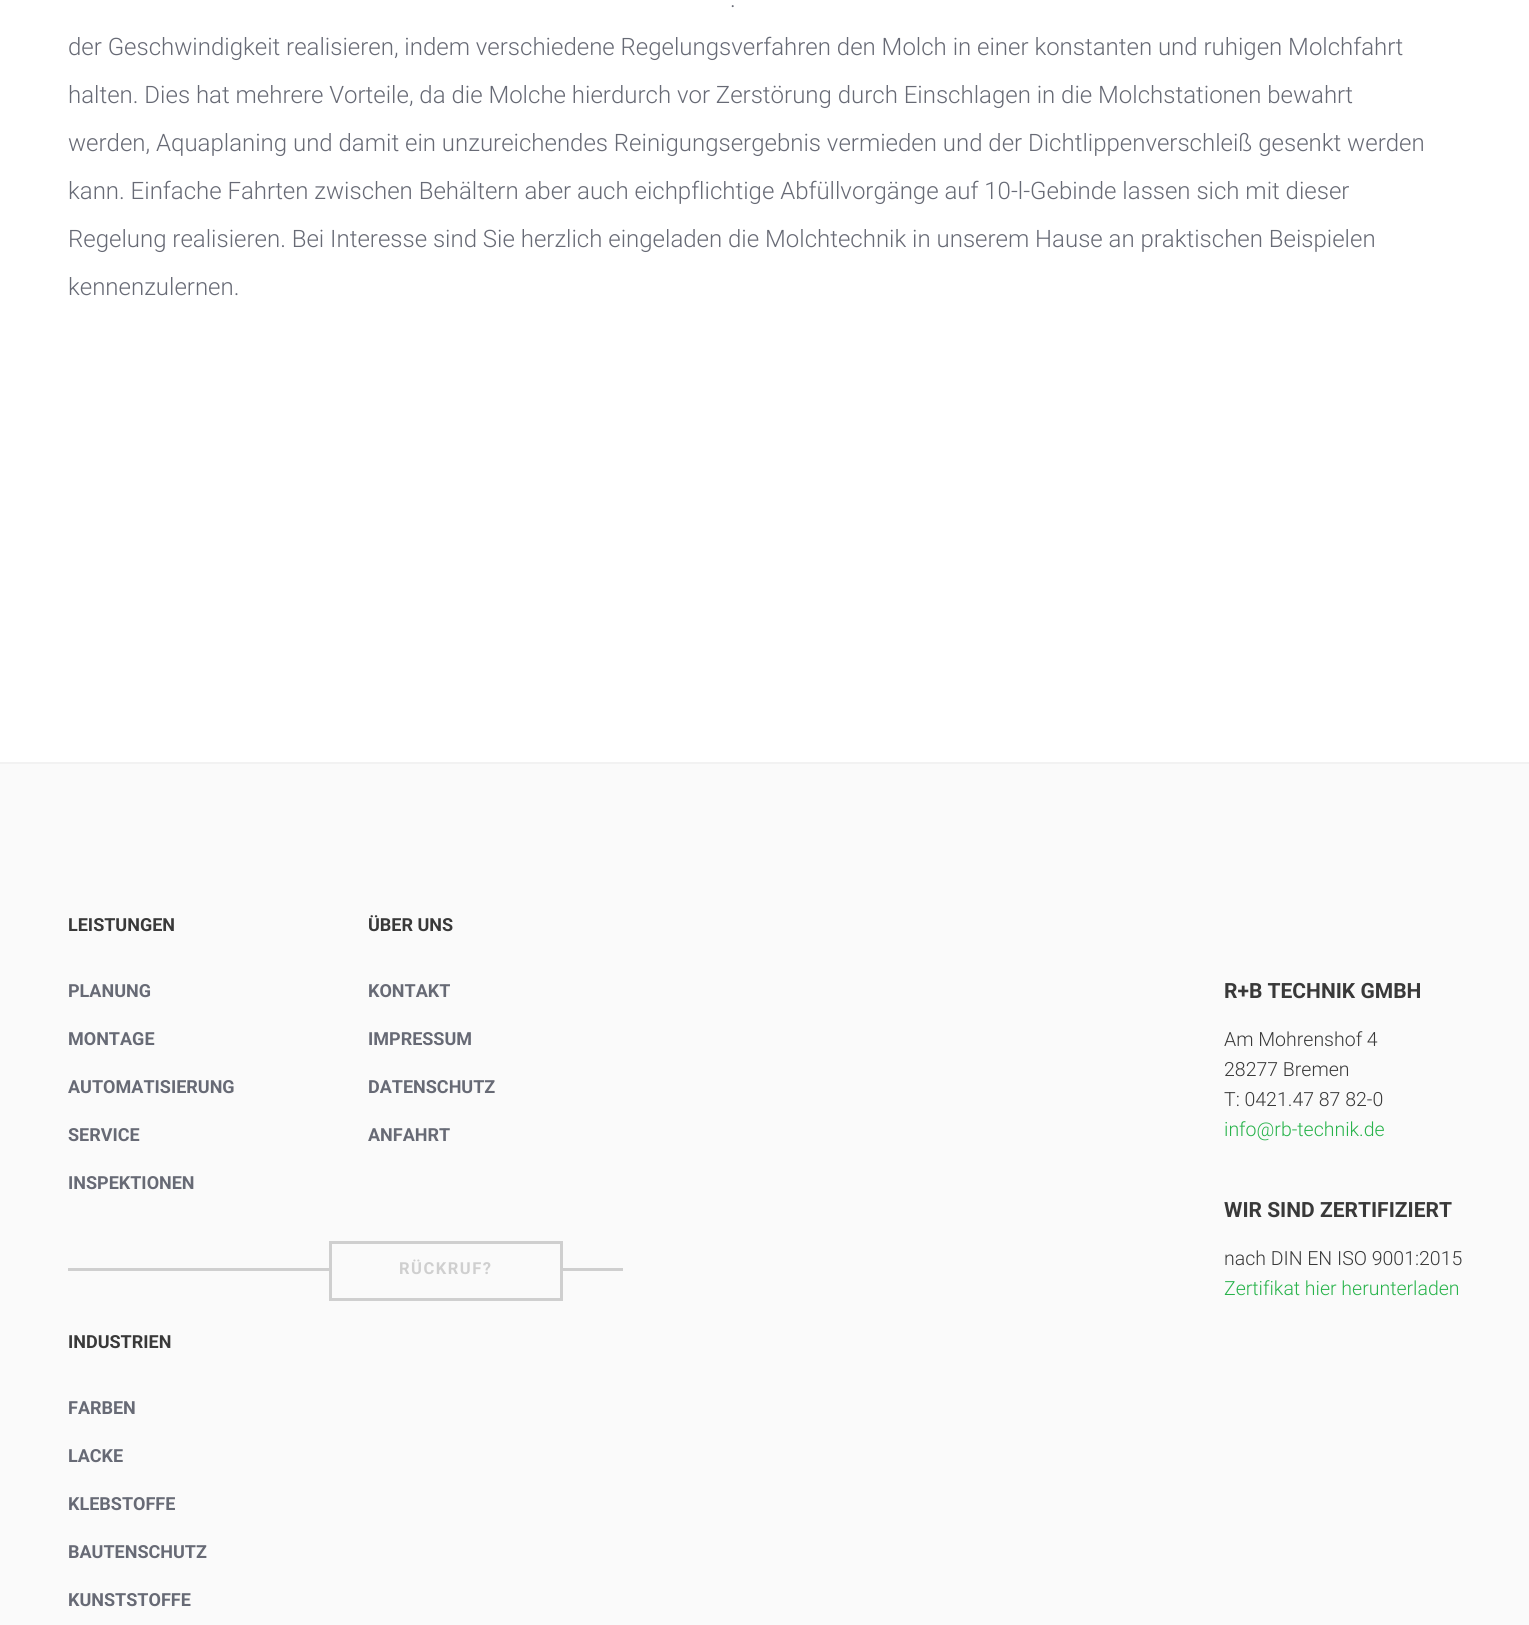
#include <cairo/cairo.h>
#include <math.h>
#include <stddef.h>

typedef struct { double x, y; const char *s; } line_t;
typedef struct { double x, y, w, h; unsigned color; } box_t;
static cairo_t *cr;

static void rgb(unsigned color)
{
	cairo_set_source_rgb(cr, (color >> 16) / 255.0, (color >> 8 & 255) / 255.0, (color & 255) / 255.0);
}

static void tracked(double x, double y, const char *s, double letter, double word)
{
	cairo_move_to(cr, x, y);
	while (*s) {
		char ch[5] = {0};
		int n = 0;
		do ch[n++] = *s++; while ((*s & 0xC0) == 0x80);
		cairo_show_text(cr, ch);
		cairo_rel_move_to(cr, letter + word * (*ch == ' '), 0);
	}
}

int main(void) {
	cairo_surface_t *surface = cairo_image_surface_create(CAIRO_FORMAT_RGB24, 1529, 1625);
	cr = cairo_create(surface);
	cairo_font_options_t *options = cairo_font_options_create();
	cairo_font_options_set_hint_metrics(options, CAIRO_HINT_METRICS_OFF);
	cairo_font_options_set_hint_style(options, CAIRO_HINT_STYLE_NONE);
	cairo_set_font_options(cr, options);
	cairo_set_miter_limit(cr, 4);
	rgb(0xffffff);
	cairo_paint(cr);
	{
		static const box_t items[] = {
			{0, 764, 1529, 861, 0xfafafa},
			{0, 762, 1529, 2, 0xf2f2f2},
			{68, 1268, 555, 3, 0xcfcfcf},
			{332, 1268, 228, 3, 0xfafafa},
		};
		for (size_t i = 0; i < sizeof items / sizeof *items; i++) {
			rgb(items[i].color);
			cairo_rectangle(cr, items[i].x, items[i].y, items[i].w, items[i].h);
			cairo_fill(cr);
		}
	}
	cairo_rectangle(cr, 330.5, 1242.5, 231, 57);
	rgb(0xcfcfcf);
	cairo_set_line_width(cr, 3);
	cairo_stroke(cr);
	cairo_select_font_face(cr, "Roboto Light", CAIRO_FONT_SLANT_NORMAL, CAIRO_FONT_WEIGHT_NORMAL);
	cairo_set_font_size(cr, 24);
	rgb(0x676a75);
	{
		static const line_t items[] = {
			{730, 7, "."},
			{68, 55, "der Geschwindigkeit realisieren, indem verschiedene Regelungsverfahren den Molch in einer konstanten und ruhigen Molchfahrt"},
			{68, 103, "halten. Dies hat mehrere Vorteile, da die Molche hierdurch vor Zerstörung durch Einschlagen in die Molchstationen bewahrt"},
			{68, 151, "werden, Aquaplaning und damit ein unzureichendes Reinigungsergebnis vermieden und der Dichtlippenverschleiß gesenkt werden"},
			{68, 199, "kann. Einfache Fahrten zwischen Behältern aber auch eichpflichtige Abfüllvorgänge auf 10-l-Gebinde lassen sich mit dieser"},
			{68, 247, "Regelung realisieren. Bei Interesse sind Sie herzlich eingeladen die Molchtechnik in unserem Hause an praktischen Beispielen"},
			{68, 295, "kennenzulernen."},
		};
		for (size_t i = 0; i < sizeof items / sizeof *items; i++) {
			cairo_move_to(cr, items[i].x, items[i].y);
			cairo_show_text(cr, items[i].s);
		}
	}
	cairo_select_font_face(cr, "Roboto", CAIRO_FONT_SLANT_NORMAL, CAIRO_FONT_WEIGHT_BOLD);
	cairo_set_font_size(cr, 18);
	rgb(0x393939);
	cairo_move_to(cr, 68, 931);
	cairo_show_text(cr, "LEISTUNGEN");
	rgb(0x676a75);
	{
		static const line_t items[] = {
			{68, 997, "PLANUNG"},
			{68, 1045, "MONTAGE"},
			{68, 1093, "AUTOMATISIERUNG"},
			{68, 1141, "SERVICE"},
			{68, 1189, "INSPEKTIONEN"},
		};
		for (size_t i = 0; i < sizeof items / sizeof *items; i++) {
			cairo_move_to(cr, items[i].x, items[i].y);
			cairo_show_text(cr, items[i].s);
		}
	}
	rgb(0x393939);
	cairo_move_to(cr, 368, 931);
	cairo_show_text(cr, "ÜBER UNS");
	rgb(0x676a75);
	{
		static const line_t items[] = {
			{368, 997, "KONTAKT"},
			{368, 1045, "IMPRESSUM"},
			{368, 1093, "DATENSCHUTZ"},
			{368, 1141, "ANFAHRT"},
		};
		for (size_t i = 0; i < sizeof items / sizeof *items; i++) {
			cairo_move_to(cr, items[i].x, items[i].y);
			cairo_show_text(cr, items[i].s);
		}
	}
	cairo_set_font_size(cr, 16.5);
	rgb(0xcfcfcf);
	tracked(399, 1274, "RÜCKRUF?", 1.5, 0);
	cairo_set_font_size(cr, 18);
	rgb(0x393939);
	cairo_move_to(cr, 68, 1348);
	cairo_show_text(cr, "INDUSTRIEN");
	rgb(0x676a75);
	{
		static const line_t items[] = {
			{68, 1414, "FARBEN"},
			{68, 1462, "LACKE"},
			{68, 1510, "KLEBSTOFFE"},
			{68, 1558, "BAUTENSCHUTZ"},
			{68, 1606, "KUNSTSTOFFE"},
		};
		for (size_t i = 0; i < sizeof items / sizeof *items; i++) {
			cairo_move_to(cr, items[i].x, items[i].y);
			cairo_show_text(cr, items[i].s);
		}
	}
	cairo_set_font_size(cr, 21);
	rgb(0x393939);
	cairo_move_to(cr, 1224, 998);
	cairo_show_text(cr, "R+B TECHNIK GMBH");
	cairo_select_font_face(cr, "Roboto Light", CAIRO_FONT_SLANT_NORMAL, CAIRO_FONT_WEIGHT_NORMAL);
	cairo_set_font_size(cr, 19.5);
	{
		static const line_t items[] = {
			{1224, 1046, "Am Mohrenshof 4"},
			{1224, 1076, "28277 Bremen"},
			{1224, 1106, "T: 0421.47 87 82-0"},
		};
		for (size_t i = 0; i < sizeof items / sizeof *items; i++) {
			cairo_move_to(cr, items[i].x, items[i].y);
			cairo_show_text(cr, items[i].s);
		}
	}
	rgb(0x28b34b);
	cairo_move_to(cr, 1224, 1136);
	cairo_show_text(cr, "info@rb-technik.de");
	cairo_select_font_face(cr, "Roboto", CAIRO_FONT_SLANT_NORMAL, CAIRO_FONT_WEIGHT_BOLD);
	cairo_set_font_size(cr, 21);
	rgb(0x393939);
	cairo_move_to(cr, 1224, 1217);
	cairo_show_text(cr, "WIR SIND ZERTIFIZIERT");
	cairo_select_font_face(cr, "Roboto Light", CAIRO_FONT_SLANT_NORMAL, CAIRO_FONT_WEIGHT_NORMAL);
	cairo_set_font_size(cr, 19.5);
	cairo_move_to(cr, 1224, 1265);
	cairo_show_text(cr, "nach DIN EN ISO 9001:2015");
	rgb(0x28b34b);
	cairo_move_to(cr, 1224, 1295);
	cairo_show_text(cr, "Zertifikat hier herunterladen");
	cairo_surface_write_to_png(surface, "page.png");
	cairo_font_options_destroy(options);
	cairo_destroy(cr);
	cairo_surface_destroy(surface);
	return 0;
}
